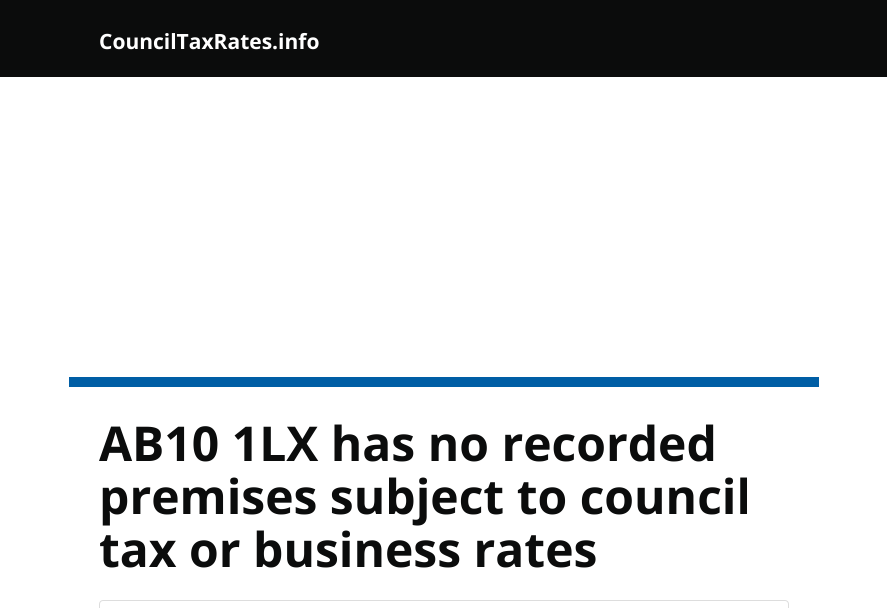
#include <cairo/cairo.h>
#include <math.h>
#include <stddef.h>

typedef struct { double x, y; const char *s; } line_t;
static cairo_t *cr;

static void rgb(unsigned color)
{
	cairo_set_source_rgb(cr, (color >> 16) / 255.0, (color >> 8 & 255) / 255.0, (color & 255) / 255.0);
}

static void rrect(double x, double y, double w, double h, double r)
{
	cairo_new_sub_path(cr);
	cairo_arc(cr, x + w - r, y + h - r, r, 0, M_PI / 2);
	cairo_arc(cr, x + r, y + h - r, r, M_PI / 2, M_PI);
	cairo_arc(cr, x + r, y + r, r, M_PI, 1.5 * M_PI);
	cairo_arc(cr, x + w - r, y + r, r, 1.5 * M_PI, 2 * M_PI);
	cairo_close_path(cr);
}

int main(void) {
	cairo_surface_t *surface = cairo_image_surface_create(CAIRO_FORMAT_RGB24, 887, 608);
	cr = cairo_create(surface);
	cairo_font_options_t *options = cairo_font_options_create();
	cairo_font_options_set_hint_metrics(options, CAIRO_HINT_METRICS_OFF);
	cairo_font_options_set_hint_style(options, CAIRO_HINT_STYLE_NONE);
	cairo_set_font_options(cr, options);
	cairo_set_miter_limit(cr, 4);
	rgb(0xffffff);
	cairo_paint(cr);
	rgb(0x0b0c0c);
	cairo_rectangle(cr, 0, 0, 887, 77);
	cairo_fill(cr);
	rgb(0x005ea5);
	cairo_rectangle(cr, 69, 377, 750, 10);
	cairo_fill(cr);
	rrect(99.5, 600.5, 689, 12, 3.5);
	rgb(0xdddddd);
	cairo_set_line_width(cr, 1);
	cairo_stroke(cr);
	cairo_select_font_face(cr, "Open Sans", CAIRO_FONT_SLANT_NORMAL, CAIRO_FONT_WEIGHT_BOLD);
	cairo_set_font_size(cr, 21);
	rgb(0xffffff);
	cairo_move_to(cr, 99, 49);
	cairo_show_text(cr, "CouncilTaxRates.info");
	cairo_set_font_size(cr, 48);
	rgb(0x0b0c0c);
	{
		static const line_t items[] = {
			{99, 461, "AB10 1LX has no recorded"},
			{99, 514, "premises subject to council"},
			{99, 567, "tax or business rates"},
		};
		for (size_t i = 0; i < sizeof items / sizeof *items; i++) {
			cairo_move_to(cr, items[i].x, items[i].y);
			cairo_show_text(cr, items[i].s);
		}
	}
	cairo_surface_write_to_png(surface, "page.png");
	cairo_font_options_destroy(options);
	cairo_destroy(cr);
	cairo_surface_destroy(surface);
	return 0;
}
